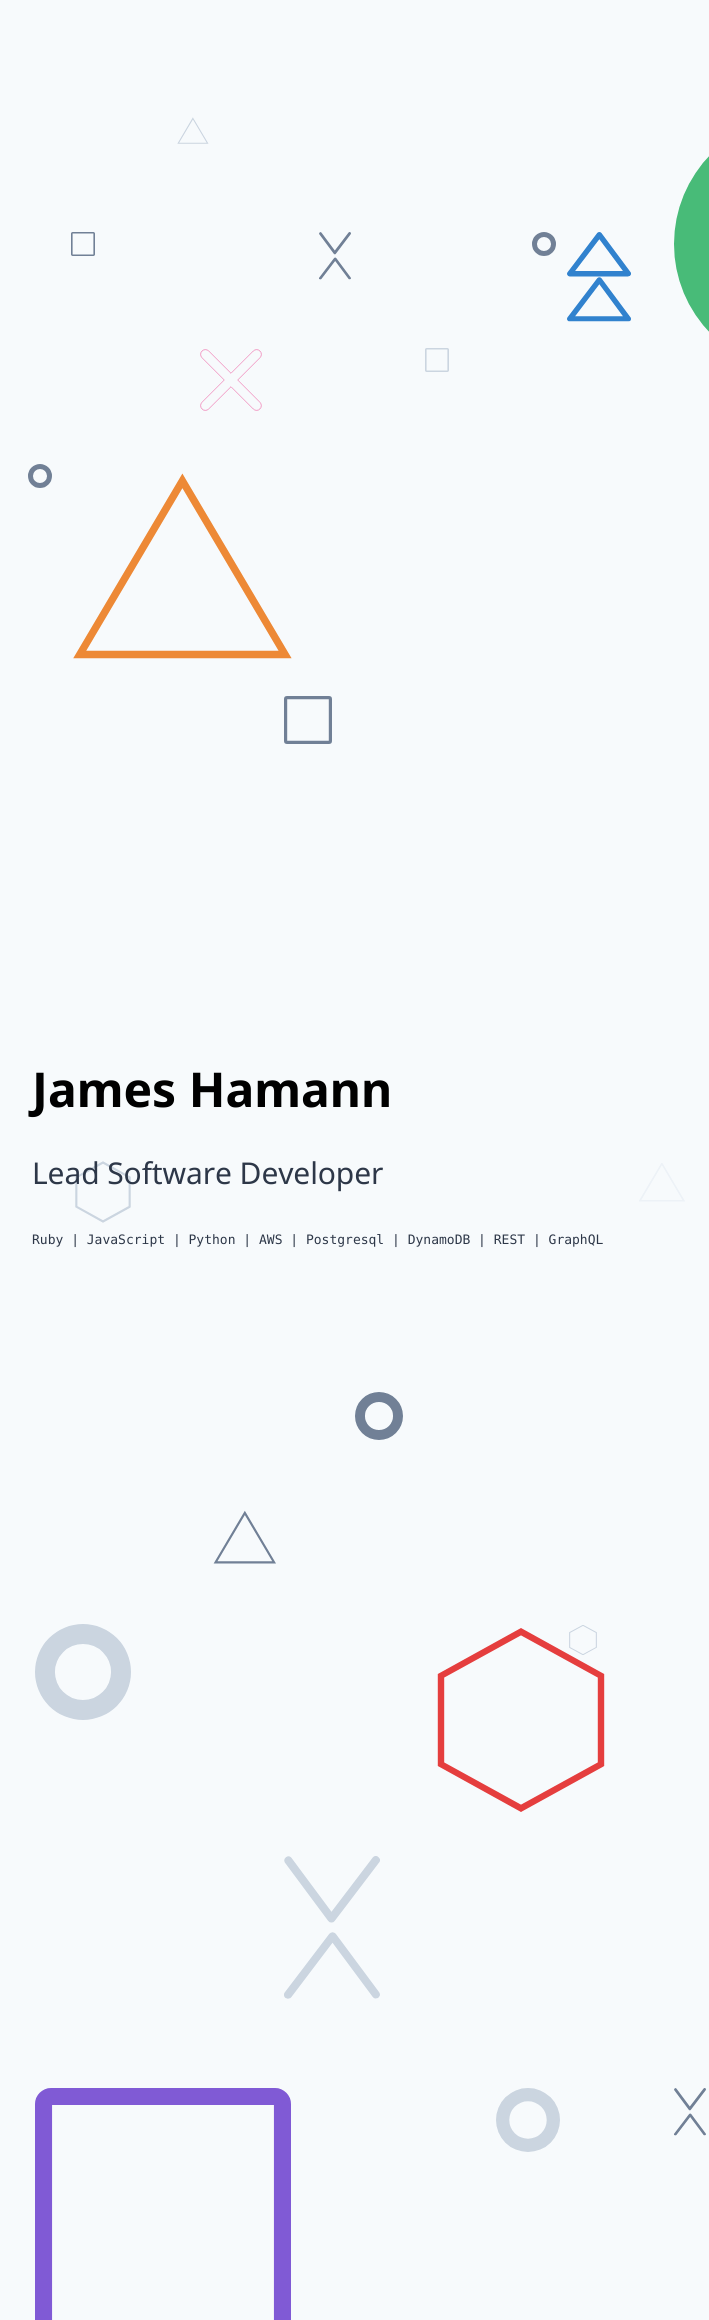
#include <cairo/cairo.h>
#include <math.h>
#include <stddef.h>

static cairo_t *cr;

static void rgb(unsigned color)
{
	cairo_set_source_rgb(cr, (color >> 16) / 255.0, (color >> 8 & 255) / 255.0, (color & 255) / 255.0);
}

static void tracked(double x, double y, const char *s, double letter, double word)
{
	cairo_move_to(cr, x, y);
	while (*s) {
		char ch[5] = {0};
		int n = 0;
		do ch[n++] = *s++; while ((*s & 0xC0) == 0x80);
		cairo_show_text(cr, ch);
		cairo_rel_move_to(cr, letter + word * (*ch == ' '), 0);
	}
}

static void image(const char *path, double x, double y, double w, double h)
{
	cairo_surface_t *image = cairo_image_surface_create_from_png(path);
	cairo_save(cr);
	cairo_set_source_surface(cr, image, x, y);
	cairo_rectangle(cr, x, y, w, h);
	cairo_fill(cr);
	cairo_restore(cr);
	cairo_surface_destroy(image);
}

int main(void) {
	cairo_surface_t *surface = cairo_image_surface_create(CAIRO_FORMAT_RGB24, 709, 2320);
	cr = cairo_create(surface);
	cairo_font_options_t *options = cairo_font_options_create();
	cairo_font_options_set_hint_metrics(options, CAIRO_HINT_METRICS_OFF);
	cairo_font_options_set_hint_style(options, CAIRO_HINT_STYLE_NONE);
	cairo_set_font_options(cr, options);
	cairo_set_miter_limit(cr, 4);
	rgb(0xf7fafc);
	cairo_paint(cr);
	image("img/1.png", 177, 117, 32, 27);
	image("img/2.png", 71, 232, 24, 24);
	image("img/3.png", 319, 232, 32, 48);
	image("img/4.png", 532, 232, 24, 24);
	image("img/5.png", 567, 232, 64, 90);
	image("img/6.png", 200, 349, 62, 62);
	image("img/7.png", 639, 1163, 46, 39);
	image("img/8.png", 213, 1510, 63, 54);
	image("img/9.png", 496, 2088, 64, 64);
	image("img/10.png", 674, 156, 35, 176);
	image("img/4.png", 28, 464, 24, 24);
	image("img/11.png", 425, 348, 24, 24);
	image("img/12.png", 73, 473, 219, 186);
	image("img/13.png", 437, 1628, 168, 184);
	image("img/14.png", 284, 696, 48, 48);
	image("img/15.png", 75, 1161, 56, 62);
	image("img/16.png", 355, 1392, 48, 48);
	image("img/17.png", 35, 1624, 96, 96);
	image("img/18.png", 569, 1625, 28, 30);
	image("img/19.png", 284, 1856, 96, 143);
	image("img/20.png", 35, 2088, 256, 232);
	image("img/3.png", 674, 2088, 32, 48);
	cairo_select_font_face(cr, "Noto Sans", CAIRO_FONT_SLANT_NORMAL, CAIRO_FONT_WEIGHT_BOLD);
	cairo_set_font_size(cr, 48);
	rgb(0x000000);
	cairo_move_to(cr, 32, 1107);
	cairo_show_text(cr, "James Hamann");
	cairo_select_font_face(cr, "Noto Sans", CAIRO_FONT_SLANT_NORMAL, CAIRO_FONT_WEIGHT_NORMAL);
	cairo_set_font_size(cr, 30);
	rgb(0x2d3748);
	tracked(32, 1184, "Lead Software Developer", -0.1, 0);
	cairo_select_font_face(cr, "DejaVu Sans Mono", CAIRO_FONT_SLANT_NORMAL, CAIRO_FONT_WEIGHT_NORMAL);
	cairo_set_font_size(cr, 13);
	cairo_move_to(cr, 32, 1244);
	cairo_show_text(cr, "Ruby | JavaScript | Python | AWS | Postgresql | DynamoDB | REST | GraphQL");
	cairo_surface_write_to_png(surface, "page.png");
	cairo_font_options_destroy(options);
	cairo_destroy(cr);
	cairo_surface_destroy(surface);
	return 0;
}
